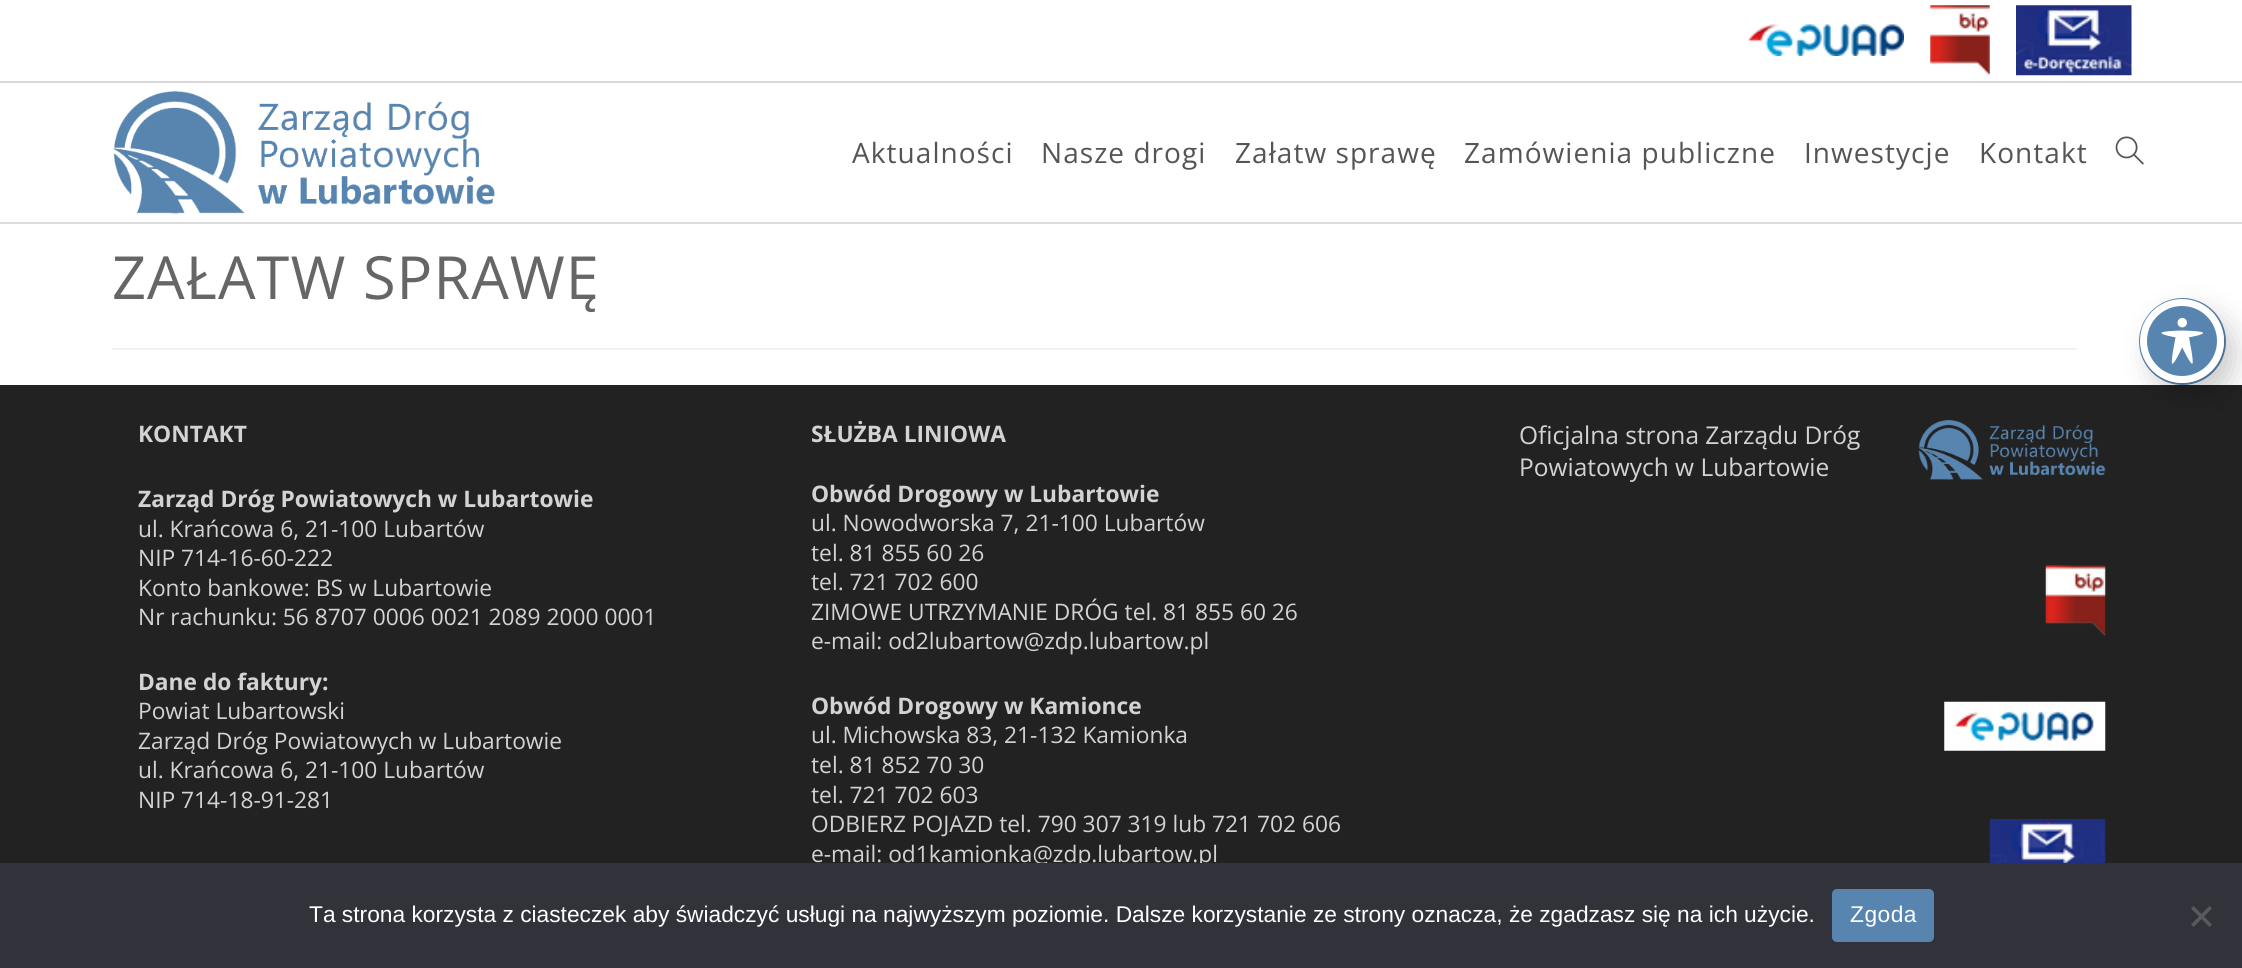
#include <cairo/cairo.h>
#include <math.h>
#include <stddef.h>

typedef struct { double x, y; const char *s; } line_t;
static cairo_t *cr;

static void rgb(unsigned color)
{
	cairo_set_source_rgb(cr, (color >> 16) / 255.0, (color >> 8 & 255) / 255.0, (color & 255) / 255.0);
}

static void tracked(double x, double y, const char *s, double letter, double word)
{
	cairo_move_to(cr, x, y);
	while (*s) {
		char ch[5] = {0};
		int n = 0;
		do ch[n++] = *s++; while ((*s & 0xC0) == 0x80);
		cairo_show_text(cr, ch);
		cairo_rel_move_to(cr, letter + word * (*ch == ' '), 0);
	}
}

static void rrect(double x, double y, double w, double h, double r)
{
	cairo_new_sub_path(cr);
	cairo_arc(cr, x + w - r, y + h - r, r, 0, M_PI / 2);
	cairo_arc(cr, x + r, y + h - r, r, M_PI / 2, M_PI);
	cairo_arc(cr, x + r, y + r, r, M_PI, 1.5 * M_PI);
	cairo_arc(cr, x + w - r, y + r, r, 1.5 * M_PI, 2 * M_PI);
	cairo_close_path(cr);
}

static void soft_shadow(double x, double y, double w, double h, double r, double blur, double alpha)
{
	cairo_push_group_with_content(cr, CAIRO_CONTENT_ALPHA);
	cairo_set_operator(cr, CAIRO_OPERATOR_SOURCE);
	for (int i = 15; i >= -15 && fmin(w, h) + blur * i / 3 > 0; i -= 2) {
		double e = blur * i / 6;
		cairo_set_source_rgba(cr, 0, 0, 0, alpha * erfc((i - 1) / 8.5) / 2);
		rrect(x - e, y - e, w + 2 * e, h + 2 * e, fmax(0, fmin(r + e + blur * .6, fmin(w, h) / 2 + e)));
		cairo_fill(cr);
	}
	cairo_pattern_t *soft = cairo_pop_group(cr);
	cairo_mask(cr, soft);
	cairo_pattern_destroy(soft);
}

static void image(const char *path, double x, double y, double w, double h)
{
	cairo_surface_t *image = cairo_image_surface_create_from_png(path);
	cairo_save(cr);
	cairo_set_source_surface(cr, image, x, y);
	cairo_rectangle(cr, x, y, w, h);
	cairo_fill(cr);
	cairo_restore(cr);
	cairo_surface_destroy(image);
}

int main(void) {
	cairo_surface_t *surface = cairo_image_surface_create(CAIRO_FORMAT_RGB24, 2242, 968);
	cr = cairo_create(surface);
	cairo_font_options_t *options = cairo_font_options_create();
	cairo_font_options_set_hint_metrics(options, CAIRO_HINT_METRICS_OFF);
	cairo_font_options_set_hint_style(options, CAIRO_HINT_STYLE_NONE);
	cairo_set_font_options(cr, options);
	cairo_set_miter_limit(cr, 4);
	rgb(0xffffff);
	cairo_paint(cr);
	rgb(0xd8d8d8);
	cairo_rectangle(cr, 0, 81, 2242, 2);
	cairo_fill(cr);
	image("img/1.png", 1748, 24, 156, 32);
	image("img/2.png", 1930, 5, 60, 71);
	image("img/3.png", 2016, 5, 116, 71);
	rgb(0xdbdbdb);
	cairo_rectangle(cr, 0, 222, 2242, 2);
	cairo_fill(cr);
	image("img/4.png", 113, 91, 382, 123);
	image("img/5.png", 2115, 136, 29, 29);
	rgb(0xf1f1f1);
	cairo_rectangle(cr, 112, 348, 1965, 2);
	cairo_fill(cr);
	rgb(0x222222);
	cairo_rectangle(cr, 0, 385, 2242, 478);
	cairo_fill(cr);
	image("img/6.png", 1918, 420, 188, 60);
	image("img/7.png", 2045, 565, 61, 71);
	image("img/8.png", 1944, 701, 162, 50);
	image("img/9.png", 1989, 819, 117, 44);
	cairo_arc(cr, 2182.5, 341.5, 42.5, 0, 2 * M_PI);
	rgb(0x5885af);
	cairo_stroke(cr);
	rgb(0x000000);
	soft_shadow(2151, 313, 84, 84, 42, 14, 0.2);
	rgb(0x5885af);
	cairo_arc(cr, 2182, 341, 38.5, 0, 2 * M_PI);
	cairo_fill_preserve(cr);
	rgb(0xffffff);
	cairo_set_line_width(cr, 7);
	cairo_stroke(cr);
	image("img/10.png", 2161, 317, 42, 47);
	cairo_select_font_face(cr, "Open Sans", CAIRO_FONT_SLANT_NORMAL, CAIRO_FONT_WEIGHT_NORMAL);
	cairo_set_font_size(cr, 28);
	rgb(0x555555);
	{
		static const line_t items[] = {
			{852, 163, "Aktualności"},
			{1041, 163, "Nasze drogi"},
			{1235, 163, "Załatw sprawę"},
			{1464, 163, "Zamówienia publiczne"},
			{1804, 163, "Inwestycje"},
			{1979, 163, "Kontakt"},
		};
		for (size_t i = 0; i < sizeof items / sizeof *items; i++) {
			tracked(items[i].x, items[i].y, items[i].s, 1.05, 0);
		}
	}
	cairo_set_font_size(cr, 59.5);
	rgb(0x666666);
	tracked(112, 299, "ZAŁATW SPRAWĘ", 1.05, 0);
	cairo_select_font_face(cr, "Open Sans", CAIRO_FONT_SLANT_NORMAL, CAIRO_FONT_WEIGHT_BOLD);
	cairo_set_font_size(cr, 22.75);
	rgb(0xd3d3d3);
	cairo_move_to(cr, 138, 442);
	cairo_show_text(cr, "KONTAKT");
	cairo_move_to(cr, 138, 507);
	cairo_show_text(cr, "Zarząd Dróg Powiatowych w Lubartowie");
	cairo_select_font_face(cr, "Open Sans", CAIRO_FONT_SLANT_NORMAL, CAIRO_FONT_WEIGHT_NORMAL);
	{
		static const line_t items[] = {
			{138, 537, "ul. Krańcowa 6, 21-100 Lubartów"},
			{138, 566, "NIP 714-16-60-222"},
			{138, 596, "Konto bankowe: BS w Lubartowie"},
			{138, 625, "Nr rachunku: 56 8707 0006 0021 2089 2000 0001"},
		};
		for (size_t i = 0; i < sizeof items / sizeof *items; i++) {
			cairo_move_to(cr, items[i].x, items[i].y);
			cairo_show_text(cr, items[i].s);
		}
	}
	cairo_select_font_face(cr, "Open Sans", CAIRO_FONT_SLANT_NORMAL, CAIRO_FONT_WEIGHT_BOLD);
	cairo_move_to(cr, 138, 690);
	cairo_show_text(cr, "Dane do faktury:");
	cairo_select_font_face(cr, "Open Sans", CAIRO_FONT_SLANT_NORMAL, CAIRO_FONT_WEIGHT_NORMAL);
	{
		static const line_t items[] = {
			{138, 719, "Powiat Lubartowski"},
			{138, 749, "Zarząd Dróg Powiatowych w Lubartowie"},
			{138, 778, "ul. Krańcowa 6, 21-100 Lubartów"},
			{138, 808, "NIP 714-18-91-281"},
		};
		for (size_t i = 0; i < sizeof items / sizeof *items; i++) {
			cairo_move_to(cr, items[i].x, items[i].y);
			cairo_show_text(cr, items[i].s);
		}
	}
	cairo_select_font_face(cr, "Open Sans", CAIRO_FONT_SLANT_NORMAL, CAIRO_FONT_WEIGHT_BOLD);
	cairo_move_to(cr, 811, 442);
	cairo_show_text(cr, "SŁUŻBA LINIOWA");
	cairo_move_to(cr, 811, 502);
	cairo_show_text(cr, "Obwód Drogowy w Lubartowie");
	cairo_select_font_face(cr, "Open Sans", CAIRO_FONT_SLANT_NORMAL, CAIRO_FONT_WEIGHT_NORMAL);
	{
		static const line_t items[] = {
			{811, 531, "ul. Nowodworska 7, 21-100 Lubartów"},
			{811, 561, "tel. 81 855 60 26"},
			{811, 590, "tel. 721 702 600"},
			{811, 620, "ZIMOWE UTRZYMANIE DRÓG tel. 81 855 60 26"},
			{811, 649, "e-mail: od2lubartow@zdp.lubartow.pl"},
		};
		for (size_t i = 0; i < sizeof items / sizeof *items; i++) {
			cairo_move_to(cr, items[i].x, items[i].y);
			cairo_show_text(cr, items[i].s);
		}
	}
	cairo_select_font_face(cr, "Open Sans", CAIRO_FONT_SLANT_NORMAL, CAIRO_FONT_WEIGHT_BOLD);
	cairo_move_to(cr, 811, 714);
	cairo_show_text(cr, "Obwód Drogowy w Kamionce");
	cairo_select_font_face(cr, "Open Sans", CAIRO_FONT_SLANT_NORMAL, CAIRO_FONT_WEIGHT_NORMAL);
	{
		static const line_t items[] = {
			{811, 743, "ul. Michowska 83, 21-132 Kamionka"},
			{811, 773, "tel. 81 852 70 30"},
			{811, 803, "tel. 721 702 603"},
			{811, 832, "ODBIERZ POJAZD tel. 790 307 319 lub 721 702 606"},
			{811, 862, "e-mail: od1kamionka@zdp.lubartow.pl"},
		};
		for (size_t i = 0; i < sizeof items / sizeof *items; i++) {
			cairo_move_to(cr, items[i].x, items[i].y);
			cairo_show_text(cr, items[i].s);
		}
	}
	cairo_set_font_size(cr, 24.5);
	cairo_move_to(cr, 1519, 444);
	cairo_show_text(cr, "Oficjalna strona Zarządu Dróg");
	cairo_move_to(cr, 1519, 476);
	cairo_show_text(cr, "Powiatowych w Lubartowie");
	rgb(0x32323a);
	cairo_rectangle(cr, 0, 863, 2242, 105);
	cairo_fill(cr);
	cairo_select_font_face(cr, "Liberation Sans", CAIRO_FONT_SLANT_NORMAL, CAIRO_FONT_WEIGHT_NORMAL);
	cairo_set_font_size(cr, 22.75);
	rgb(0xffffff);
	cairo_move_to(cr, 309, 922);
	cairo_show_text(cr, "Ta strona korzysta z ciasteczek aby świadczyć usługi na najwyższym poziomie. Dalsze korzystanie ze strony oznacza, że zgadzasz się na ich użycie.");
	rgb(0x5885af);
	rrect(1832, 889, 102, 53, 5);
	cairo_fill(cr);
	rgb(0xffffff);
	tracked(1850, 922, "Zgoda", 0.5, 0);
	rgb(0x59595d);
	cairo_new_path(cr);
	cairo_move_to(cr, 2209.5, 906);
	cairo_line_to(cr, 2212, 908.5);
	cairo_line_to(cr, 2193.5, 927);
	cairo_line_to(cr, 2191, 924.5);
	cairo_close_path(cr);
	cairo_fill(cr);
	cairo_new_path(cr);
	cairo_move_to(cr, 2191, 908.5);
	cairo_line_to(cr, 2193.5, 906);
	cairo_line_to(cr, 2212, 924.5);
	cairo_line_to(cr, 2209.5, 927);
	cairo_close_path(cr);
	cairo_fill(cr);
	cairo_surface_write_to_png(surface, "page.png");
	cairo_font_options_destroy(options);
	cairo_destroy(cr);
	cairo_surface_destroy(surface);
	return 0;
}
